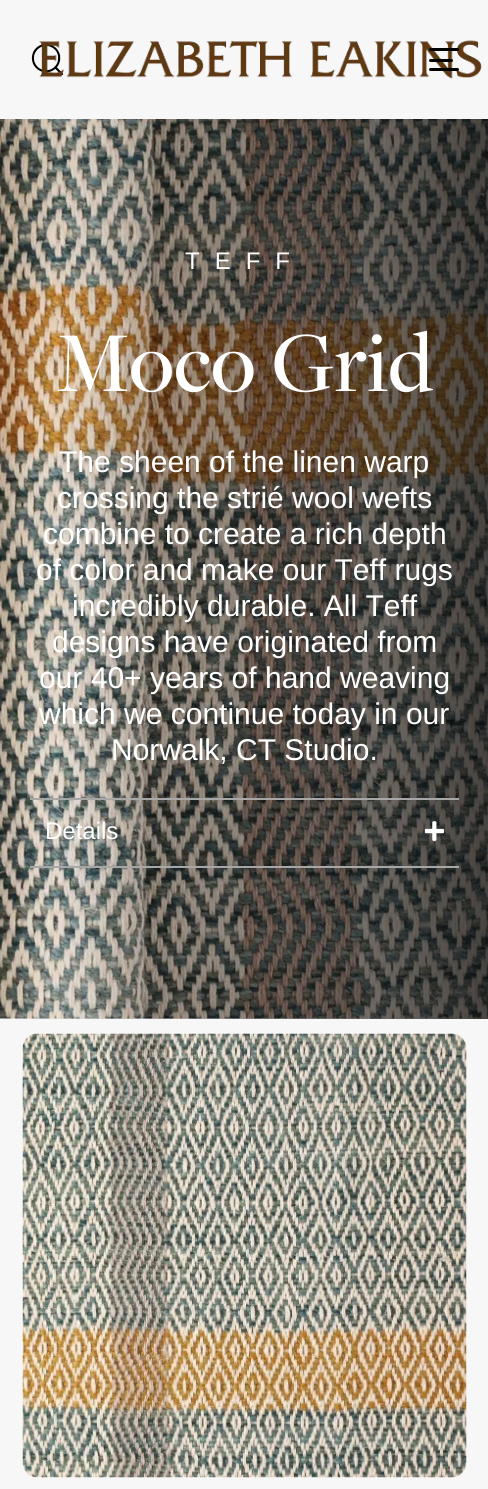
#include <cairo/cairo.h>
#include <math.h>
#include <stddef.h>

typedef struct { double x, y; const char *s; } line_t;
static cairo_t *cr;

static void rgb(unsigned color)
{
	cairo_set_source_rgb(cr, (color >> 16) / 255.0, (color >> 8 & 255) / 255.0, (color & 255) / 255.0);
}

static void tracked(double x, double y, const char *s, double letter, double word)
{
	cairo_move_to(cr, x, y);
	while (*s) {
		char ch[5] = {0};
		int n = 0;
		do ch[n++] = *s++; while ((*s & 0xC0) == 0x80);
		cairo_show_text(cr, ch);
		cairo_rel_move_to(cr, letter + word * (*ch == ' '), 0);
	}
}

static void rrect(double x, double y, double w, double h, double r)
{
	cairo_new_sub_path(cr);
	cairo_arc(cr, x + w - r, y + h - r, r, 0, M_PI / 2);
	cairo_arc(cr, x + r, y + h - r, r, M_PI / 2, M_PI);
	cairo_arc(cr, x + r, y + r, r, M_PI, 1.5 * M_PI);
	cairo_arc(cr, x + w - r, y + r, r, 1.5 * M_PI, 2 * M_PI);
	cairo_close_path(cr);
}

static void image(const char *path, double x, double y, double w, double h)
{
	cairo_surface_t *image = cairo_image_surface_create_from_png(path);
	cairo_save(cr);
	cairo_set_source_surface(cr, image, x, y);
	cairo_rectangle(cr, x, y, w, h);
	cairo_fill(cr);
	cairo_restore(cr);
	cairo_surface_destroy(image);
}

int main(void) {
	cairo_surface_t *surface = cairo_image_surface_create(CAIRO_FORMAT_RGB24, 488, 1489);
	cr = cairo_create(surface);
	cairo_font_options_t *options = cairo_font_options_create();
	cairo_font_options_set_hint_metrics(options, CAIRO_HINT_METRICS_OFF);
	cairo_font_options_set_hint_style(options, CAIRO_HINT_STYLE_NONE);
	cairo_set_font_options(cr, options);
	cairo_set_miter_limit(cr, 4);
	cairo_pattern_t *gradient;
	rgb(0xf7f7f7);
	cairo_paint(cr);
	image("img/2.png", 31, 44, 32, 31);
	image("img/1.png", 39, 40, 443, 39);
	rgb(0x000000);
	rrect(429, 48, 30, 3, 1.5);
	cairo_fill(cr);
	rrect(429, 59, 24, 3, 1.5);
	cairo_fill(cr);
	rrect(429, 68, 30, 3, 1.5);
	cairo_fill(cr);
	image("img/3.png", 0, 119, 488, 900);
	gradient = cairo_pattern_create_linear(0, 569, 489, 569);
	cairo_pattern_add_color_stop_rgba(gradient, 0, 0, 0, 0, 0);
	cairo_pattern_add_color_stop_rgba(gradient, 1, 0, 0, 0, 0.71);
	cairo_set_source(cr, gradient);
	cairo_pattern_destroy(gradient);
	cairo_rectangle(cr, 15, 119, 473, 900);
	cairo_fill(cr);
	rgb(0xa7a7a7);
	cairo_rectangle(cr, 30, 798, 429, 2);
	cairo_fill(cr);
	cairo_rectangle(cr, 30, 866, 429, 2);
	cairo_fill(cr);
	image("img/4.png", 425, 821, 19, 20);
	image("img/5.png", 22, 1033, 445, 445);
	cairo_select_font_face(cr, "Liberation Sans", CAIRO_FONT_SLANT_NORMAL, CAIRO_FONT_WEIGHT_NORMAL);
	cairo_set_font_size(cr, 24);
	rgb(0xffffff);
	tracked(185, 269, "TEFF", 15, 0);
	cairo_select_font_face(cr, "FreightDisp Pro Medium", CAIRO_FONT_SLANT_NORMAL, CAIRO_FONT_WEIGHT_NORMAL);
	cairo_set_font_size(cr, 88.5);
	cairo_move_to(cr, 56, 391);
	cairo_show_text(cr, "Moco Grid");
	cairo_select_font_face(cr, "Liberation Sans", CAIRO_FONT_SLANT_NORMAL, CAIRO_FONT_WEIGHT_NORMAL);
	cairo_set_font_size(cr, 30);
	{
		static const line_t items[] = {
			{59, 472, "The sheen of the linen warp"},
			{57, 508, "crossing the strié wool wefts"},
			{43, 544, "combine to create a rich depth"},
			{36, 580, "of color and make our Teff rugs"},
			{72, 616, "incredibly durable. All Teff"},
			{52, 652, "designs have originated from"},
			{39, 688, "our 40+ years of hand weaving"},
			{39, 724, "which we continue today in our"},
			{111, 760, "Norwalk, CT Studio."},
		};
		for (size_t i = 0; i < sizeof items / sizeof *items; i++) {
			cairo_move_to(cr, items[i].x, items[i].y);
			cairo_show_text(cr, items[i].s);
		}
	}
	cairo_set_font_size(cr, 24);
	cairo_move_to(cr, 45, 839);
	cairo_show_text(cr, "Details");
	cairo_surface_write_to_png(surface, "page.png");
	cairo_font_options_destroy(options);
	cairo_destroy(cr);
	cairo_surface_destroy(surface);
	return 0;
}
